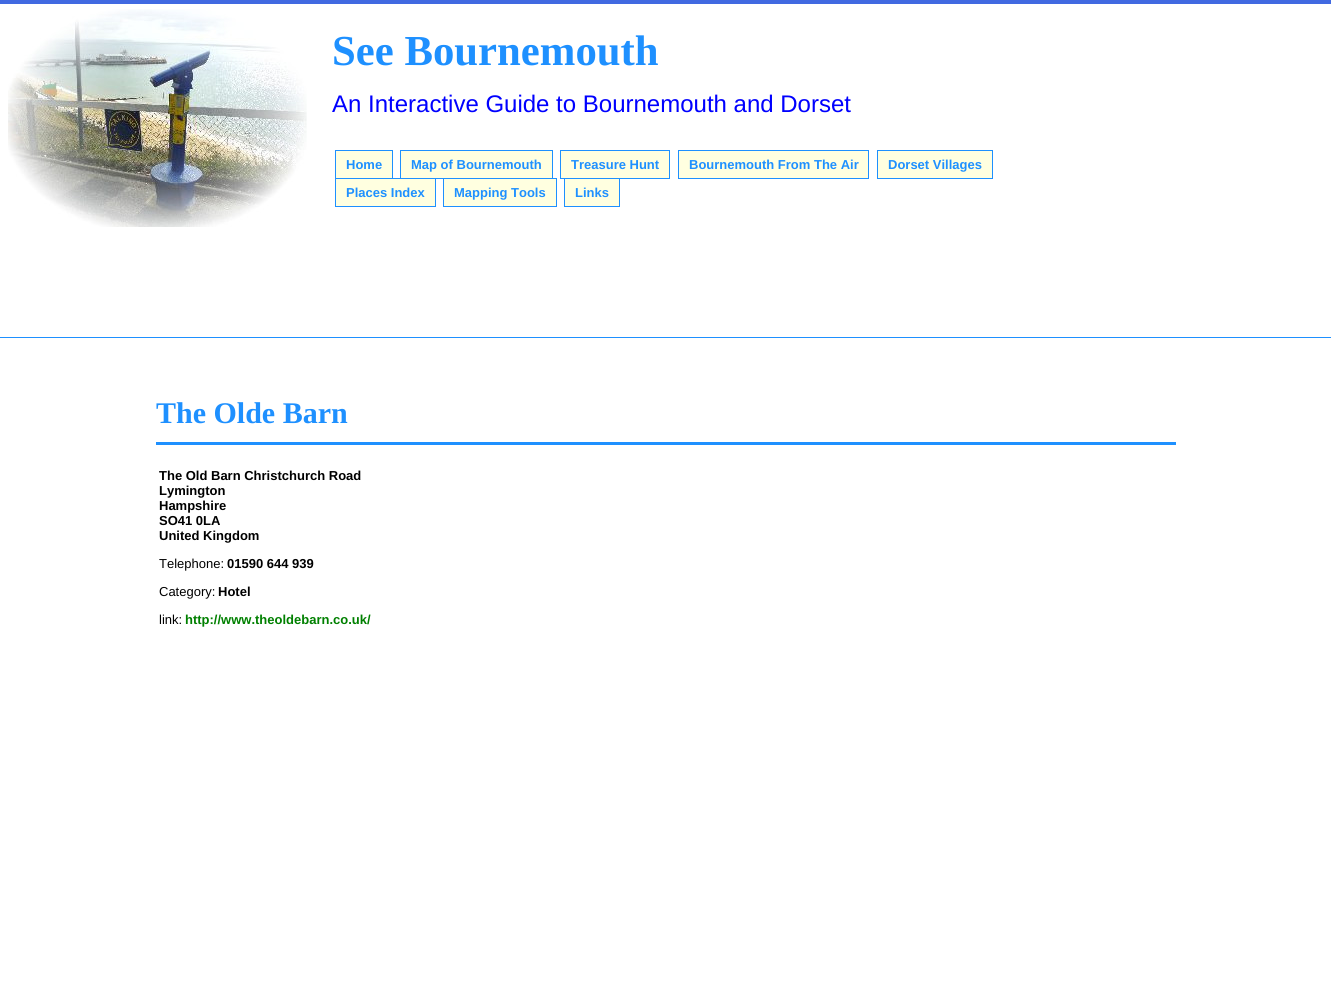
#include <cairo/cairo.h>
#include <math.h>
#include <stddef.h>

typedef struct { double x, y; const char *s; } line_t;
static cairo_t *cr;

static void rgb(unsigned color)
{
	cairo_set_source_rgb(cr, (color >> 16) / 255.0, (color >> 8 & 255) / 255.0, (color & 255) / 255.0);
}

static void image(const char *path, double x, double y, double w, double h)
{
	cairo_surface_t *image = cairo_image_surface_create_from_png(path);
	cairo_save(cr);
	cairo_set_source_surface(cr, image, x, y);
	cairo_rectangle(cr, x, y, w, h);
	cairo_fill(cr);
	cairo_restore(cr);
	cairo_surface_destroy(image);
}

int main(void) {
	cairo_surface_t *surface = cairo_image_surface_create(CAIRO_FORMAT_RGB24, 1331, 998);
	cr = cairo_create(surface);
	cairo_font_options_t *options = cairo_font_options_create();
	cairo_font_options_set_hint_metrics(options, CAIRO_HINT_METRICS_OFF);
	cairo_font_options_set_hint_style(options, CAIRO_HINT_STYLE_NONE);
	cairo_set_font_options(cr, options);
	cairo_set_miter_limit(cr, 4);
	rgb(0x4169e1);
	cairo_paint(cr);
	rgb(0xffffff);
	cairo_rectangle(cr, 0, 4, 1331, 994);
	cairo_fill(cr);
	image("img/1.png", 8, 9, 299, 218);
	rgb(0xffffe0);
	cairo_rectangle(cr, 335.5, 150.5, 57, 28);
	cairo_fill_preserve(cr);
	rgb(0x1e90ff);
	cairo_set_line_width(cr, 1);
	cairo_stroke(cr);
	rgb(0xffffe0);
	cairo_rectangle(cr, 400.5, 150.5, 152, 28);
	cairo_fill_preserve(cr);
	rgb(0x1e90ff);
	cairo_stroke(cr);
	rgb(0xffffe0);
	cairo_rectangle(cr, 560.5, 150.5, 109, 28);
	cairo_fill_preserve(cr);
	rgb(0x1e90ff);
	cairo_stroke(cr);
	rgb(0xffffe0);
	cairo_rectangle(cr, 678.5, 150.5, 190, 28);
	cairo_fill_preserve(cr);
	rgb(0x1e90ff);
	cairo_stroke(cr);
	rgb(0xffffe0);
	cairo_rectangle(cr, 877.5, 150.5, 115, 28);
	cairo_fill_preserve(cr);
	rgb(0x1e90ff);
	cairo_stroke(cr);
	rgb(0xffffe0);
	cairo_rectangle(cr, 335.5, 178.5, 100, 28);
	cairo_fill_preserve(cr);
	rgb(0x1e90ff);
	cairo_stroke(cr);
	rgb(0xffffe0);
	cairo_rectangle(cr, 443.5, 178.5, 113, 28);
	cairo_fill_preserve(cr);
	rgb(0x1e90ff);
	cairo_stroke(cr);
	rgb(0xffffe0);
	cairo_rectangle(cr, 564.5, 178.5, 55, 28);
	cairo_fill_preserve(cr);
	rgb(0x1e90ff);
	cairo_stroke(cr);
	cairo_rectangle(cr, 0, 337, 1331, 1);
	cairo_fill(cr);
	cairo_rectangle(cr, 156, 442, 1020, 3);
	cairo_fill(cr);
	cairo_select_font_face(cr, "Liberation Serif", CAIRO_FONT_SLANT_NORMAL, CAIRO_FONT_WEIGHT_BOLD);
	cairo_set_font_size(cr, 42.75);
	cairo_move_to(cr, 332, 65);
	cairo_show_text(cr, "See Bournemouth");
	cairo_select_font_face(cr, "Liberation Sans", CAIRO_FONT_SLANT_NORMAL, CAIRO_FONT_WEIGHT_NORMAL);
	cairo_set_font_size(cr, 24);
	rgb(0x0000ff);
	cairo_move_to(cr, 332, 112);
	cairo_show_text(cr, "An Interactive Guide to Bournemouth and Dorset");
	cairo_select_font_face(cr, "Liberation Sans", CAIRO_FONT_SLANT_NORMAL, CAIRO_FONT_WEIGHT_BOLD);
	cairo_set_font_size(cr, 13);
	rgb(0x1e90ff);
	{
		static const line_t items[] = {
			{346, 169, "Home"},
			{411, 169, "Map of Bournemouth"},
			{571, 169, "Treasure Hunt"},
			{689, 169, "Bournemouth From The Air"},
			{888, 169, "Dorset Villages"},
			{346, 197, "Places Index"},
			{454, 197, "Mapping Tools"},
			{575, 197, "Links"},
		};
		for (size_t i = 0; i < sizeof items / sizeof *items; i++) {
			cairo_move_to(cr, items[i].x, items[i].y);
			cairo_show_text(cr, items[i].s);
		}
	}
	cairo_select_font_face(cr, "Liberation Serif", CAIRO_FONT_SLANT_NORMAL, CAIRO_FONT_WEIGHT_BOLD);
	cairo_set_font_size(cr, 30);
	cairo_move_to(cr, 156, 423);
	cairo_show_text(cr, "The Olde Barn");
	cairo_select_font_face(cr, "Liberation Sans", CAIRO_FONT_SLANT_NORMAL, CAIRO_FONT_WEIGHT_BOLD);
	cairo_set_font_size(cr, 13);
	rgb(0x000000);
	{
		static const line_t items[] = {
			{159, 480, "The Old Barn Christchurch Road"},
			{159, 495, "Lymington"},
			{159, 510, "Hampshire"},
			{159, 525, "SO41 0LA"},
			{159, 540, "United Kingdom"},
		};
		for (size_t i = 0; i < sizeof items / sizeof *items; i++) {
			cairo_move_to(cr, items[i].x, items[i].y);
			cairo_show_text(cr, items[i].s);
		}
	}
	cairo_select_font_face(cr, "Liberation Sans", CAIRO_FONT_SLANT_NORMAL, CAIRO_FONT_WEIGHT_NORMAL);
	cairo_move_to(cr, 159, 568);
	cairo_show_text(cr, "Telephone:");
	cairo_select_font_face(cr, "Liberation Sans", CAIRO_FONT_SLANT_NORMAL, CAIRO_FONT_WEIGHT_BOLD);
	cairo_move_to(cr, 227, 568);
	cairo_show_text(cr, "01590 644 939");
	cairo_select_font_face(cr, "Liberation Sans", CAIRO_FONT_SLANT_NORMAL, CAIRO_FONT_WEIGHT_NORMAL);
	cairo_move_to(cr, 159, 596);
	cairo_show_text(cr, "Category:");
	cairo_select_font_face(cr, "Liberation Sans", CAIRO_FONT_SLANT_NORMAL, CAIRO_FONT_WEIGHT_BOLD);
	cairo_move_to(cr, 218, 596);
	cairo_show_text(cr, "Hotel");
	cairo_select_font_face(cr, "Liberation Sans", CAIRO_FONT_SLANT_NORMAL, CAIRO_FONT_WEIGHT_NORMAL);
	cairo_move_to(cr, 159, 624);
	cairo_show_text(cr, "link:");
	cairo_select_font_face(cr, "Liberation Sans", CAIRO_FONT_SLANT_NORMAL, CAIRO_FONT_WEIGHT_BOLD);
	rgb(0x008000);
	cairo_move_to(cr, 185, 624);
	cairo_show_text(cr, "http://www.theoldebarn.co.uk/");
	cairo_surface_write_to_png(surface, "page.png");
	cairo_font_options_destroy(options);
	cairo_destroy(cr);
	cairo_surface_destroy(surface);
	return 0;
}
